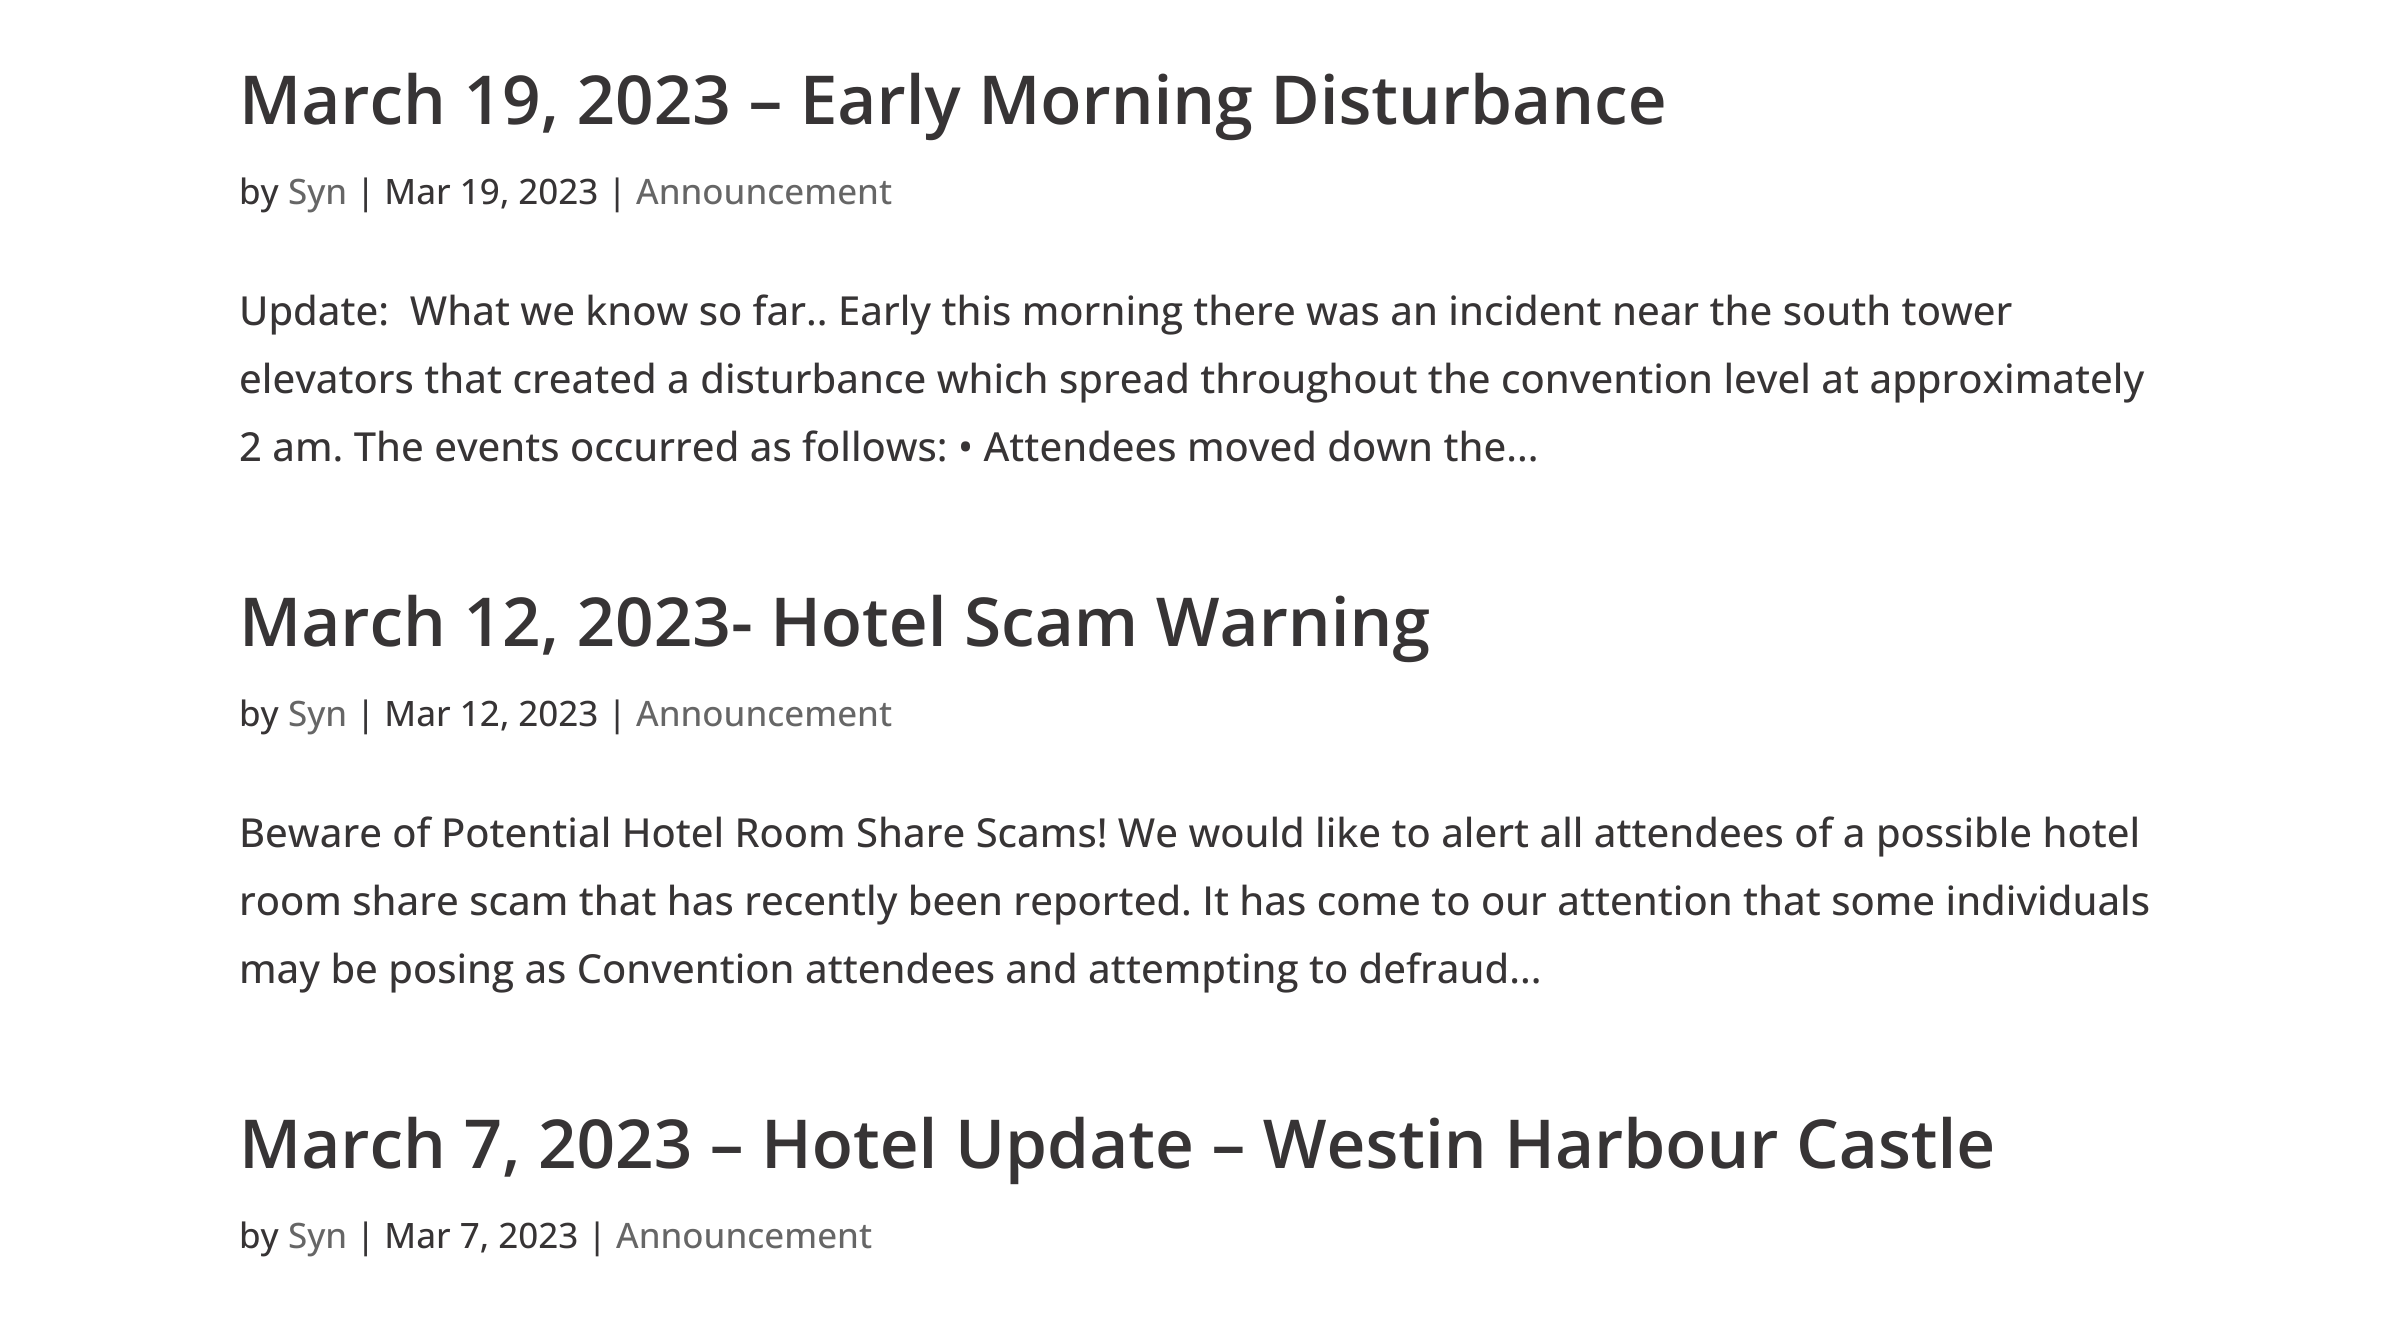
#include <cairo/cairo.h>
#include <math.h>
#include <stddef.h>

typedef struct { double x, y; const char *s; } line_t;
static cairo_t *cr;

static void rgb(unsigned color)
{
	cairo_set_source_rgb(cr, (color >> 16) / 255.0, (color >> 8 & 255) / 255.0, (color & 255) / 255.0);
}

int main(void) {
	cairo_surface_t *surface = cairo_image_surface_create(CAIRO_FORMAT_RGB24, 2388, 1339);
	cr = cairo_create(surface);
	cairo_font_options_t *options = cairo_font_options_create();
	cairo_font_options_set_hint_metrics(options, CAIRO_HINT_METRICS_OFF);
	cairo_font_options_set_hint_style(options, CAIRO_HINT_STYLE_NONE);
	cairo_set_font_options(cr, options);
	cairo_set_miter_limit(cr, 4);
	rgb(0xffffff);
	cairo_paint(cr);
	cairo_select_font_face(cr, "Open Sans SemiBold", CAIRO_FONT_SLANT_NORMAL, CAIRO_FONT_WEIGHT_NORMAL);
	cairo_set_font_size(cr, 67.5);
	rgb(0x373435);
	cairo_move_to(cr, 239, 124);
	cairo_show_text(cr, "March 19, 2023 – Early Morning Disturbance");
	cairo_select_font_face(cr, "Open Sans Medium", CAIRO_FONT_SLANT_NORMAL, CAIRO_FONT_WEIGHT_NORMAL);
	cairo_set_font_size(cr, 35);
	cairo_move_to(cr, 239, 204);
	cairo_show_text(cr, "by");
	rgb(0x666666);
	cairo_move_to(cr, 288, 204);
	cairo_show_text(cr, "Syn");
	rgb(0x373435);
	cairo_move_to(cr, 356, 204);
	cairo_show_text(cr, "| Mar 19, 2023 |");
	rgb(0x666666);
	cairo_move_to(cr, 636, 204);
	cairo_show_text(cr, "Announcement");
	cairo_set_font_size(cr, 40);
	rgb(0x373435);
	{
		static const line_t items[] = {
			{239, 325, "Update:  What we know so far.. Early this morning there was an incident near the south tower"},
			{239, 393, "elevators that created a disturbance which spread throughout the convention level at approximately"},
			{239, 461, "2 am. The events occurred as follows: • Attendees moved down the..."},
		};
		for (size_t i = 0; i < sizeof items / sizeof *items; i++) {
			cairo_move_to(cr, items[i].x, items[i].y);
			cairo_show_text(cr, items[i].s);
		}
	}
	cairo_select_font_face(cr, "Open Sans SemiBold", CAIRO_FONT_SLANT_NORMAL, CAIRO_FONT_WEIGHT_NORMAL);
	cairo_set_font_size(cr, 67.5);
	cairo_move_to(cr, 239, 646);
	cairo_show_text(cr, "March 12, 2023- Hotel Scam Warning");
	cairo_select_font_face(cr, "Open Sans Medium", CAIRO_FONT_SLANT_NORMAL, CAIRO_FONT_WEIGHT_NORMAL);
	cairo_set_font_size(cr, 35);
	cairo_move_to(cr, 239, 726);
	cairo_show_text(cr, "by");
	rgb(0x666666);
	cairo_move_to(cr, 288, 726);
	cairo_show_text(cr, "Syn");
	rgb(0x373435);
	cairo_move_to(cr, 356, 726);
	cairo_show_text(cr, "| Mar 12, 2023 |");
	rgb(0x666666);
	cairo_move_to(cr, 636, 726);
	cairo_show_text(cr, "Announcement");
	cairo_set_font_size(cr, 40);
	rgb(0x373435);
	{
		static const line_t items[] = {
			{239, 847, "Beware of Potential Hotel Room Share Scams! We would like to alert all attendees of a possible hotel"},
			{239, 915, "room share scam that has recently been reported. It has come to our attention that some individuals"},
			{239, 983, "may be posing as Convention attendees and attempting to defraud..."},
		};
		for (size_t i = 0; i < sizeof items / sizeof *items; i++) {
			cairo_move_to(cr, items[i].x, items[i].y);
			cairo_show_text(cr, items[i].s);
		}
	}
	cairo_select_font_face(cr, "Open Sans SemiBold", CAIRO_FONT_SLANT_NORMAL, CAIRO_FONT_WEIGHT_NORMAL);
	cairo_set_font_size(cr, 67.5);
	cairo_move_to(cr, 239, 1168);
	cairo_show_text(cr, "March 7, 2023 – Hotel Update – Westin Harbour Castle");
	cairo_select_font_face(cr, "Open Sans Medium", CAIRO_FONT_SLANT_NORMAL, CAIRO_FONT_WEIGHT_NORMAL);
	cairo_set_font_size(cr, 35);
	cairo_move_to(cr, 239, 1248);
	cairo_show_text(cr, "by");
	rgb(0x666666);
	cairo_move_to(cr, 288, 1248);
	cairo_show_text(cr, "Syn");
	rgb(0x373435);
	cairo_move_to(cr, 356, 1248);
	cairo_show_text(cr, "| Mar 7, 2023 |");
	rgb(0x666666);
	cairo_move_to(cr, 616, 1248);
	cairo_show_text(cr, "Announcement");
	cairo_surface_write_to_png(surface, "page.png");
	cairo_font_options_destroy(options);
	cairo_destroy(cr);
	cairo_surface_destroy(surface);
	return 0;
}
